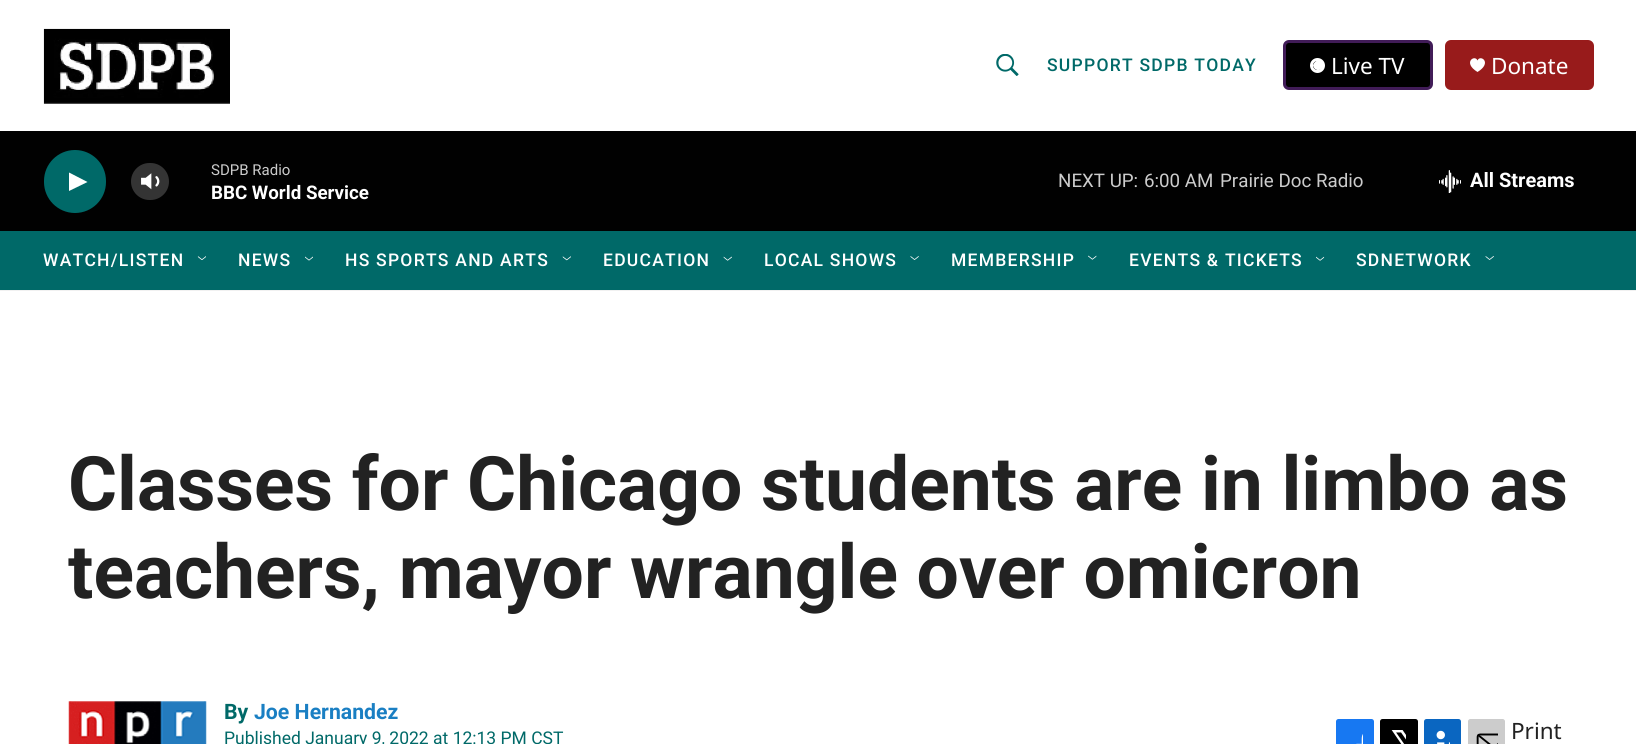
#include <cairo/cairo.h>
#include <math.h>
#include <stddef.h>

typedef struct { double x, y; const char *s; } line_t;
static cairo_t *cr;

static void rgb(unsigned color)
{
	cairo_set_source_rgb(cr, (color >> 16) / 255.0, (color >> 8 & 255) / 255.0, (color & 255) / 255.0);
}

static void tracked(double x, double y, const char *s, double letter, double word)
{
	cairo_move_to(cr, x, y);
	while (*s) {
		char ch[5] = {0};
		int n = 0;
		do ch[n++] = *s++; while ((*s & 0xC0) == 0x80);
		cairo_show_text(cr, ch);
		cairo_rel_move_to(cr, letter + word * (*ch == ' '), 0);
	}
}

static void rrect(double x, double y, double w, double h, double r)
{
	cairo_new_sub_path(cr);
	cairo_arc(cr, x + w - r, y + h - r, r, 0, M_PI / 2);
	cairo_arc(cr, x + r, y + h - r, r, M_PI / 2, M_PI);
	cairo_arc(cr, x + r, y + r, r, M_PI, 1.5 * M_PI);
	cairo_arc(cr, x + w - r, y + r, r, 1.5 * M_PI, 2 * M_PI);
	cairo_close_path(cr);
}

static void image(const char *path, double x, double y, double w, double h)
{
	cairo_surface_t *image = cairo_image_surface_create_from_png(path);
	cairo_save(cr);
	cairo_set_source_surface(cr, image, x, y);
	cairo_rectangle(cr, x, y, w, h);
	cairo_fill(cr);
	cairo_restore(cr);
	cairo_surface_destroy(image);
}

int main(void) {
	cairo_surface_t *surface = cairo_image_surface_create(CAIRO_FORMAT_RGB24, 1636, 744);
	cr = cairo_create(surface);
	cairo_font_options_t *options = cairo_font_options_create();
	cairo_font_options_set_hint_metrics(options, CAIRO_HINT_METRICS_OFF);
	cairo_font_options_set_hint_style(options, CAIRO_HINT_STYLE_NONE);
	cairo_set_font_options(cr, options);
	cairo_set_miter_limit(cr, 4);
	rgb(0xffffff);
	cairo_paint(cr);
	rgb(0xf1f1f1);
	cairo_rectangle(cr, 0, 290, 1636, 1);
	cairo_fill(cr);
	image("img/1.png", 43, 28, 187, 76);
	image("img/2.png", 996, 54, 23, 22);
	rgb(0x000000);
	rrect(1284.5, 41.5, 147, 47, 4.5);
	cairo_fill_preserve(cr);
	rgb(0x411c58);
	cairo_set_line_width(cr, 3);
	cairo_stroke(cr);
	cairo_arc(cr, 1317.5, 65.5, 6, 0, 2 * M_PI);
	rgb(0xffffff);
	cairo_stroke(cr);
	cairo_new_path(cr);
	cairo_move_to(cr, 1313, 65);
	cairo_curve_to(cr, 1314, 62.5, 1317, 59.5, 1319.5, 60.5);
	cairo_curve_to(cr, 1326.5, 63, 1321.5, 73.5, 1315, 69);
	cairo_curve_to(cr, 1314, 68, 1313, 66.5, 1313, 65);
	cairo_close_path(cr);
	cairo_fill(cr);
	rgb(0x981b1b);
	rrect(1445, 40, 149, 50, 6);
	cairo_fill(cr);
	rgb(0xffffff);
	cairo_new_path(cr);
	cairo_move_to(cr, 1477.5, 60.5);
	cairo_curve_to(cr, 1475, 54, 1462, 62.5, 1477.5, 72);
	cairo_curve_to(cr, 1493, 62.5, 1480, 54, 1477.5, 60.5);
	cairo_close_path(cr);
	cairo_fill(cr);
	rgb(0x010101);
	cairo_rectangle(cr, 0, 131, 1636, 100);
	cairo_fill(cr);
	rgb(0x006968);
	rrect(44, 150, 62, 63, 31);
	cairo_fill(cr);
	rgb(0xffffff);
	cairo_new_path(cr);
	cairo_move_to(cr, 69, 172.5);
	cairo_line_to(cr, 87.5, 182);
	cairo_line_to(cr, 69, 191);
	cairo_close_path(cr);
	cairo_fill(cr);
	image("img/3.png", 141, 173, 19, 17);
	cairo_set_source_rgba(cr, 1, 1, 1, 0.2);
	rrect(131, 163, 38, 37, 18.5);
	cairo_fill(cr);
	image("img/4.png", 1439, 170, 22, 23);
	rgb(0x006968);
	cairo_rectangle(cr, 0, 231, 1636, 59);
	cairo_fill(cr);
	image("img/5.png", 197, 256, 9, 4);
	image("img/6.png", 305, 256, 8, 5);
	image("img/7.png", 562, 256, 9, 5);
	image("img/8.png", 723, 256, 9, 5);
	image("img/9.png", 910, 256, 9, 4);
	image("img/10.png", 1088, 255, 9, 5);
	image("img/11.png", 1316, 256, 9, 5);
	image("img/12.png", 1485, 256, 9, 4);
	image("img/13.png", 68, 701, 139, 43);
	rgb(0x1778f2);
	rrect(1336, 719, 38, 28, 2.5);
	cairo_fill(cr);
	image("img/14.png", 1356, 734, 7, 10);
	rgb(0x000000);
	rrect(1380, 719, 38, 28, 2.5);
	cairo_fill(cr);
	image("img/15.png", 1391, 730, 15, 14);
	rgb(0x0a66c1);
	rrect(1424, 719, 37, 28, 2.5);
	cairo_fill(cr);
	image("img/16.png", 1436, 730, 14, 14);
	rgb(0xcccccc);
	rrect(1468.5, 719.5, 36, 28, 2);
	cairo_fill_preserve(cr);
	cairo_set_line_width(cr, 1);
	cairo_stroke(cr);
	image("img/17.png", 1476, 733, 22, 11);
	cairo_select_font_face(cr, "Roboto Medium", CAIRO_FONT_SLANT_NORMAL, CAIRO_FONT_WEIGHT_NORMAL);
	cairo_set_font_size(cr, 17.5);
	rgb(0x006968);
	tracked(1047, 71, "SUPPORT SDPB TODAY", 1.25, 0);
	cairo_select_font_face(cr, "Noto Sans", CAIRO_FONT_SLANT_NORMAL, CAIRO_FONT_WEIGHT_NORMAL);
	cairo_set_font_size(cr, 22.5);
	rgb(0xffffff);
	cairo_move_to(cr, 1331, 74);
	cairo_show_text(cr, "Live TV");
	cairo_move_to(cr, 1491, 74);
	cairo_show_text(cr, "Donate");
	cairo_select_font_face(cr, "Roboto", CAIRO_FONT_SLANT_NORMAL, CAIRO_FONT_WEIGHT_NORMAL);
	cairo_set_font_size(cr, 15);
	rgb(0xcccccc);
	cairo_move_to(cr, 211, 175);
	cairo_show_text(cr, "SDPB Radio");
	cairo_select_font_face(cr, "Roboto", CAIRO_FONT_SLANT_NORMAL, CAIRO_FONT_WEIGHT_BOLD);
	cairo_set_font_size(cr, 18.75);
	rgb(0xffffff);
	cairo_move_to(cr, 211, 199);
	cairo_show_text(cr, "BBC World Service");
	cairo_select_font_face(cr, "Roboto", CAIRO_FONT_SLANT_NORMAL, CAIRO_FONT_WEIGHT_NORMAL);
	rgb(0xcccccc);
	{
		static const line_t items[] = {
			{1058, 187, "NEXT UP:"},
			{1144, 187, "6:00 AM"},
			{1220, 187, "Prairie Doc Radio"},
		};
		for (size_t i = 0; i < sizeof items / sizeof *items; i++) {
			cairo_move_to(cr, items[i].x, items[i].y);
			cairo_show_text(cr, items[i].s);
		}
	}
	cairo_select_font_face(cr, "Roboto", CAIRO_FONT_SLANT_NORMAL, CAIRO_FONT_WEIGHT_BOLD);
	cairo_set_font_size(cr, 20);
	rgb(0xffffff);
	cairo_move_to(cr, 1470, 187);
	cairo_show_text(cr, "All Streams");
	cairo_select_font_face(cr, "Roboto Medium", CAIRO_FONT_SLANT_NORMAL, CAIRO_FONT_WEIGHT_NORMAL);
	cairo_set_font_size(cr, 17.5);
	{
		static const line_t items[] = {
			{43, 266, "WATCH/LISTEN"},
			{238, 266, "NEWS"},
			{345, 266, "HS SPORTS AND ARTS"},
			{603, 266, "EDUCATION"},
			{764, 266, "LOCAL SHOWS"},
			{951, 266, "MEMBERSHIP"},
			{1129, 266, "EVENTS & TICKETS"},
			{1356, 266, "SDNETWORK"},
		};
		for (size_t i = 0; i < sizeof items / sizeof *items; i++) {
			tracked(items[i].x, items[i].y, items[i].s, 1.25, 0);
		}
	}
	cairo_select_font_face(cr, "Roboto", CAIRO_FONT_SLANT_NORMAL, CAIRO_FONT_WEIGHT_BOLD);
	cairo_set_font_size(cr, 75);
	rgb(0x222222);
	cairo_move_to(cr, 68, 510);
	cairo_show_text(cr, "Classes for Chicago students are in limbo as");
	cairo_move_to(cr, 68, 598);
	cairo_show_text(cr, "teachers, mayor wrangle over omicron");
	cairo_set_font_size(cr, 21.25);
	rgb(0x006968);
	cairo_move_to(cr, 224, 719);
	cairo_show_text(cr, "By");
	rgb(0x1a7fc3);
	cairo_move_to(cr, 254, 719);
	cairo_show_text(cr, "Joe Hernandez");
	cairo_select_font_face(cr, "Roboto", CAIRO_FONT_SLANT_NORMAL, CAIRO_FONT_WEIGHT_NORMAL);
	cairo_set_font_size(cr, 17.5);
	rgb(0x006968);
	cairo_move_to(cr, 224, 744);
	cairo_show_text(cr, "Published January 9, 2022 at 12:13 PM CST");
	cairo_select_font_face(cr, "Noto Sans", CAIRO_FONT_SLANT_NORMAL, CAIRO_FONT_WEIGHT_NORMAL);
	cairo_set_font_size(cr, 22.5);
	rgb(0x222222);
	cairo_move_to(cr, 1511, 739);
	cairo_show_text(cr, "Print");
	cairo_surface_write_to_png(surface, "page.png");
	cairo_font_options_destroy(options);
	cairo_destroy(cr);
	cairo_surface_destroy(surface);
	return 0;
}
